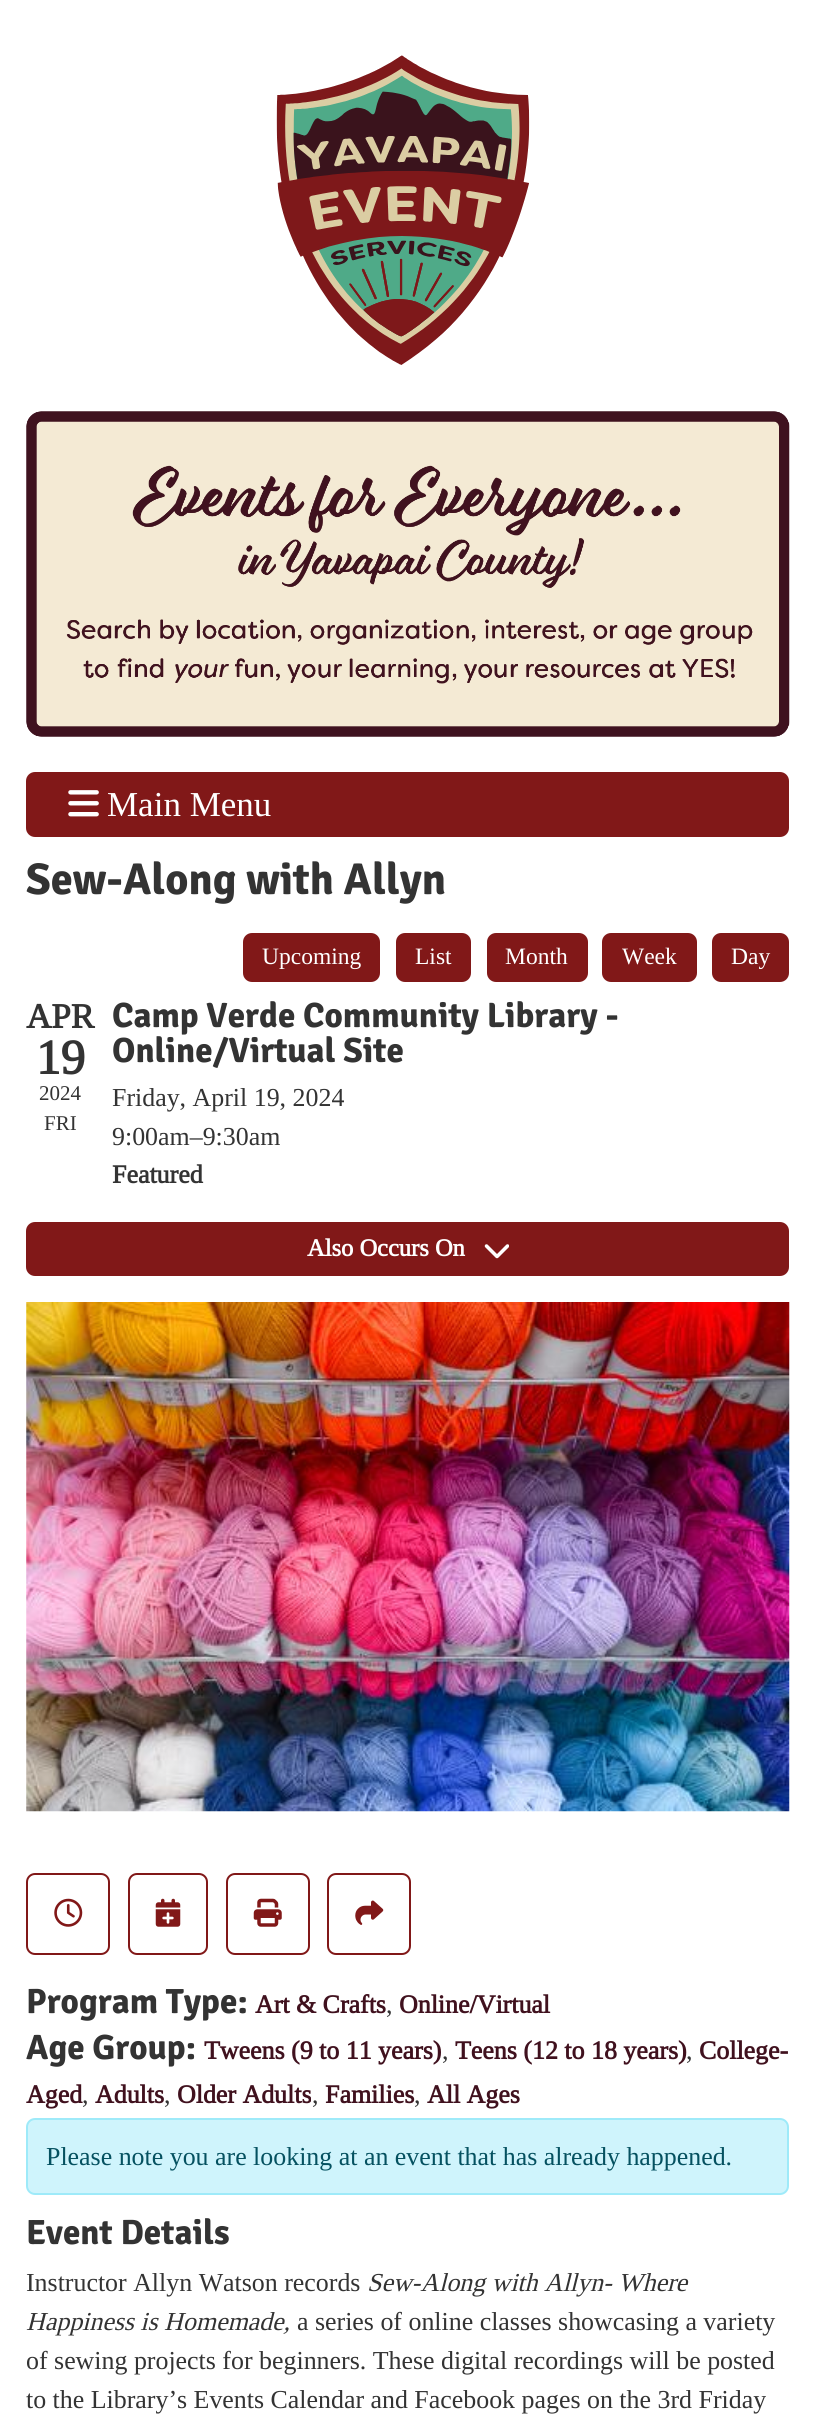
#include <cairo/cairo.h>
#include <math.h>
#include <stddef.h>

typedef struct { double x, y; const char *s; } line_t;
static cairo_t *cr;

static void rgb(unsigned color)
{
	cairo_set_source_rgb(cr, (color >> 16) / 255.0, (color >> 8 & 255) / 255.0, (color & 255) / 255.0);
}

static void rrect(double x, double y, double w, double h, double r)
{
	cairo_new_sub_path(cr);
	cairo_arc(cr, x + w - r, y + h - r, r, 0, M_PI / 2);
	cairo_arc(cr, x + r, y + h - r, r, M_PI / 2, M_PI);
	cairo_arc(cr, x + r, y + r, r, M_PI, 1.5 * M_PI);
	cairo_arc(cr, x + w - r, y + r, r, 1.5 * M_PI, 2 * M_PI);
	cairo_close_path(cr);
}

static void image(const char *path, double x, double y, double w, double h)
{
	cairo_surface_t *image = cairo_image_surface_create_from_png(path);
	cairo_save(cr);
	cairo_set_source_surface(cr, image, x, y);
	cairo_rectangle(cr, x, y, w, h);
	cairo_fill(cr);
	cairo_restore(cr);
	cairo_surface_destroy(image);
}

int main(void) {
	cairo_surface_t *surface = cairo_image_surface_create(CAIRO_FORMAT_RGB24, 814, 2425);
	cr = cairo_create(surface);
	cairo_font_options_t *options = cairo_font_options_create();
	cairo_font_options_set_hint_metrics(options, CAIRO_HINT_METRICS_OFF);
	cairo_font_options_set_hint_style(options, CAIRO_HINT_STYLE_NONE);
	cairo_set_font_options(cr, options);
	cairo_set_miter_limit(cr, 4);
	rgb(0xffffff);
	cairo_paint(cr);
	image("img/1.png", 276, 55, 254, 310);
	image("img/2.png", 26, 411, 764, 326);
	rgb(0x811818);
	rrect(26, 772, 763, 65, 9);
	cairo_fill(cr);
	image("img/3.png", 68, 790, 31, 27);
	rrect(244, 934, 135, 47, 8);
	cairo_fill_preserve(cr);
	cairo_stroke(cr);
	rrect(397, 934, 73, 47, 8);
	cairo_fill_preserve(cr);
	cairo_stroke(cr);
	rrect(488, 934, 99, 47, 8);
	cairo_fill_preserve(cr);
	cairo_stroke(cr);
	rrect(603, 934, 93, 47, 8);
	cairo_fill_preserve(cr);
	cairo_stroke(cr);
	rrect(713, 934, 75, 47, 8);
	cairo_fill_preserve(cr);
	cairo_stroke(cr);
	rrect(27, 1223, 761, 52, 8);
	cairo_fill_preserve(cr);
	cairo_stroke(cr);
	image("img/4.png", 484, 1244, 25, 15);
	image("img/5.png", 26, 1302, 764, 510);
	rrect(27, 1874, 82, 80, 8);
	cairo_stroke(cr);
	image("img/6.png", 54, 1898, 29, 29);
	rrect(129, 1874, 78, 80, 8);
	cairo_stroke(cr);
	image("img/7.png", 155, 1898, 26, 29);
	rrect(227, 1874, 82, 80, 8);
	cairo_stroke(cr);
	image("img/8.png", 253, 1898, 29, 29);
	rrect(328, 1874, 82, 80, 8);
	cairo_stroke(cr);
	image("img/9.png", 355, 1900, 29, 25);
	rgb(0xcff4fc);
	rrect(27, 2119, 761, 75, 8);
	cairo_fill_preserve(cr);
	rgb(0x9eeaf9);
	cairo_stroke(cr);
	cairo_select_font_face(cr, "Tinos", CAIRO_FONT_SLANT_NORMAL, CAIRO_FONT_WEIGHT_NORMAL);
	cairo_set_font_size(cr, 35);
	rgb(0xffffff);
	cairo_move_to(cr, 107, 816);
	cairo_show_text(cr, "Main Menu");
	cairo_select_font_face(cr, "Signika", CAIRO_FONT_SLANT_NORMAL, CAIRO_FONT_WEIGHT_BOLD);
	cairo_set_font_size(cr, 44.4);
	rgb(0x333333);
	cairo_move_to(cr, 26, 894);
	cairo_show_text(cr, "Sew-Along with Allyn");
	cairo_select_font_face(cr, "Tinos", CAIRO_FONT_SLANT_NORMAL, CAIRO_FONT_WEIGHT_NORMAL);
	cairo_set_font_size(cr, 23.5);
	rgb(0xffffff);
	{
		static const line_t items[] = {
			{262, 964, "Upcoming"},
			{415, 964, "List"},
			{505, 964, "Month"},
			{622, 964, "Week"},
			{731, 964, "Day"},
		};
		for (size_t i = 0; i < sizeof items / sizeof *items; i++) {
			cairo_move_to(cr, items[i].x, items[i].y);
			cairo_show_text(cr, items[i].s);
		}
	}
	cairo_select_font_face(cr, "Tinos", CAIRO_FONT_SLANT_NORMAL, CAIRO_FONT_WEIGHT_BOLD);
	cairo_set_font_size(cr, 35);
	rgb(0x333333);
	cairo_move_to(cr, 26, 1028);
	cairo_show_text(cr, "APR");
	cairo_set_font_size(cr, 49);
	cairo_move_to(cr, 36, 1074);
	cairo_show_text(cr, "19");
	cairo_select_font_face(cr, "Tinos", CAIRO_FONT_SLANT_NORMAL, CAIRO_FONT_WEIGHT_NORMAL);
	cairo_set_font_size(cr, 21);
	cairo_move_to(cr, 39, 1100);
	cairo_show_text(cr, "2024");
	cairo_move_to(cr, 44, 1130);
	cairo_show_text(cr, "FRI");
	cairo_select_font_face(cr, "Signika", CAIRO_FONT_SLANT_NORMAL, CAIRO_FONT_WEIGHT_BOLD);
	cairo_set_font_size(cr, 35.1);
	cairo_move_to(cr, 112, 1027);
	cairo_show_text(cr, "Camp Verde Community Library -");
	cairo_move_to(cr, 112, 1062);
	cairo_show_text(cr, "Online/Virtual Site");
	cairo_select_font_face(cr, "Tinos", CAIRO_FONT_SLANT_NORMAL, CAIRO_FONT_WEIGHT_NORMAL);
	cairo_set_font_size(cr, 25.9);
	cairo_move_to(cr, 112, 1106);
	cairo_show_text(cr, "Friday, April 19, 2024");
	cairo_move_to(cr, 112, 1145);
	cairo_show_text(cr, "9:00am–9:30am");
	cairo_select_font_face(cr, "Tinos", CAIRO_FONT_SLANT_NORMAL, CAIRO_FONT_WEIGHT_BOLD);
	cairo_move_to(cr, 112, 1183);
	cairo_show_text(cr, "Featured");
	cairo_set_font_size(cr, 24.5);
	rgb(0xffffff);
	cairo_move_to(cr, 307, 1256);
	cairo_show_text(cr, "Also Occurs On");
	cairo_select_font_face(cr, "Signika", CAIRO_FONT_SLANT_NORMAL, CAIRO_FONT_WEIGHT_BOLD);
	cairo_set_font_size(cr, 35.1);
	rgb(0x333333);
	cairo_move_to(cr, 26, 2013);
	cairo_show_text(cr, "Program Type:");
	cairo_select_font_face(cr, "Tinos", CAIRO_FONT_SLANT_NORMAL, CAIRO_FONT_WEIGHT_BOLD);
	cairo_set_font_size(cr, 25.9);
	rgb(0x40111e);
	cairo_move_to(cr, 255, 2013);
	cairo_show_text(cr, "Art & Crafts");
	cairo_select_font_face(cr, "Tinos", CAIRO_FONT_SLANT_NORMAL, CAIRO_FONT_WEIGHT_NORMAL);
	rgb(0x333333);
	cairo_move_to(cr, 386, 2013);
	cairo_show_text(cr, ",");
	cairo_select_font_face(cr, "Tinos", CAIRO_FONT_SLANT_NORMAL, CAIRO_FONT_WEIGHT_BOLD);
	rgb(0x40111e);
	cairo_move_to(cr, 399, 2013);
	cairo_show_text(cr, "Online/Virtual");
	cairo_select_font_face(cr, "Signika", CAIRO_FONT_SLANT_NORMAL, CAIRO_FONT_WEIGHT_BOLD);
	cairo_set_font_size(cr, 35.1);
	rgb(0x333333);
	cairo_move_to(cr, 26, 2059);
	cairo_show_text(cr, "Age Group:");
	cairo_select_font_face(cr, "Tinos", CAIRO_FONT_SLANT_NORMAL, CAIRO_FONT_WEIGHT_BOLD);
	cairo_set_font_size(cr, 25.9);
	rgb(0x40111e);
	cairo_move_to(cr, 204, 2059);
	cairo_show_text(cr, "Tweens (9 to 11 years)");
	cairo_select_font_face(cr, "Tinos", CAIRO_FONT_SLANT_NORMAL, CAIRO_FONT_WEIGHT_NORMAL);
	rgb(0x333333);
	cairo_move_to(cr, 442, 2059);
	cairo_show_text(cr, ",");
	cairo_select_font_face(cr, "Tinos", CAIRO_FONT_SLANT_NORMAL, CAIRO_FONT_WEIGHT_BOLD);
	rgb(0x40111e);
	cairo_move_to(cr, 455, 2059);
	cairo_show_text(cr, "Teens (12 to 18 years)");
	cairo_select_font_face(cr, "Tinos", CAIRO_FONT_SLANT_NORMAL, CAIRO_FONT_WEIGHT_NORMAL);
	rgb(0x333333);
	cairo_move_to(cr, 686, 2059);
	cairo_show_text(cr, ",");
	cairo_select_font_face(cr, "Tinos", CAIRO_FONT_SLANT_NORMAL, CAIRO_FONT_WEIGHT_BOLD);
	rgb(0x40111e);
	cairo_move_to(cr, 699, 2059);
	cairo_show_text(cr, "College-");
	cairo_move_to(cr, 26, 2103);
	cairo_show_text(cr, "Aged");
	cairo_select_font_face(cr, "Tinos", CAIRO_FONT_SLANT_NORMAL, CAIRO_FONT_WEIGHT_NORMAL);
	rgb(0x333333);
	cairo_move_to(cr, 82, 2103);
	cairo_show_text(cr, ",");
	cairo_select_font_face(cr, "Tinos", CAIRO_FONT_SLANT_NORMAL, CAIRO_FONT_WEIGHT_BOLD);
	rgb(0x40111e);
	cairo_move_to(cr, 95, 2103);
	cairo_show_text(cr, "Adults");
	cairo_select_font_face(cr, "Tinos", CAIRO_FONT_SLANT_NORMAL, CAIRO_FONT_WEIGHT_NORMAL);
	rgb(0x333333);
	cairo_move_to(cr, 164, 2103);
	cairo_show_text(cr, ",");
	cairo_select_font_face(cr, "Tinos", CAIRO_FONT_SLANT_NORMAL, CAIRO_FONT_WEIGHT_BOLD);
	rgb(0x40111e);
	cairo_move_to(cr, 177, 2103);
	cairo_show_text(cr, "Older Adults");
	cairo_select_font_face(cr, "Tinos", CAIRO_FONT_SLANT_NORMAL, CAIRO_FONT_WEIGHT_NORMAL);
	rgb(0x333333);
	cairo_move_to(cr, 312, 2103);
	cairo_show_text(cr, ",");
	cairo_select_font_face(cr, "Tinos", CAIRO_FONT_SLANT_NORMAL, CAIRO_FONT_WEIGHT_BOLD);
	rgb(0x40111e);
	cairo_move_to(cr, 325, 2103);
	cairo_show_text(cr, "Families");
	cairo_select_font_face(cr, "Tinos", CAIRO_FONT_SLANT_NORMAL, CAIRO_FONT_WEIGHT_NORMAL);
	rgb(0x333333);
	cairo_move_to(cr, 414, 2103);
	cairo_show_text(cr, ",");
	cairo_select_font_face(cr, "Tinos", CAIRO_FONT_SLANT_NORMAL, CAIRO_FONT_WEIGHT_BOLD);
	rgb(0x40111e);
	cairo_move_to(cr, 427, 2103);
	cairo_show_text(cr, "All Ages");
	cairo_select_font_face(cr, "Tinos", CAIRO_FONT_SLANT_NORMAL, CAIRO_FONT_WEIGHT_NORMAL);
	rgb(0x055160);
	cairo_move_to(cr, 46, 2165);
	cairo_show_text(cr, "Please note you are looking at an event that has already happened.");
	cairo_select_font_face(cr, "Signika", CAIRO_FONT_SLANT_NORMAL, CAIRO_FONT_WEIGHT_BOLD);
	cairo_set_font_size(cr, 35.1);
	rgb(0x333333);
	cairo_move_to(cr, 26, 2244);
	cairo_show_text(cr, "Event Details");
	cairo_select_font_face(cr, "Tinos", CAIRO_FONT_SLANT_NORMAL, CAIRO_FONT_WEIGHT_NORMAL);
	cairo_set_font_size(cr, 25.9);
	cairo_move_to(cr, 26, 2291);
	cairo_show_text(cr, "Instructor Allyn Watson records");
	cairo_select_font_face(cr, "Tinos", CAIRO_FONT_SLANT_ITALIC, CAIRO_FONT_WEIGHT_NORMAL);
	cairo_move_to(cr, 367, 2291);
	cairo_show_text(cr, "Sew-Along with Allyn- Where");
	cairo_move_to(cr, 26, 2330);
	cairo_show_text(cr, "Happiness is Homemade,");
	cairo_select_font_face(cr, "Tinos", CAIRO_FONT_SLANT_NORMAL, CAIRO_FONT_WEIGHT_NORMAL);
	{
		static const line_t items[] = {
			{297, 2330, "a series of online classes showcasing a variety"},
			{26, 2369, "of sewing projects for beginners. These digital recordings will be posted"},
			{26, 2408, "to the Library’s Events Calendar and Facebook pages on the 3rd Friday"},
		};
		for (size_t i = 0; i < sizeof items / sizeof *items; i++) {
			cairo_move_to(cr, items[i].x, items[i].y);
			cairo_show_text(cr, items[i].s);
		}
	}
	cairo_surface_write_to_png(surface, "page.png");
	cairo_font_options_destroy(options);
	cairo_destroy(cr);
	cairo_surface_destroy(surface);
	return 0;
}
